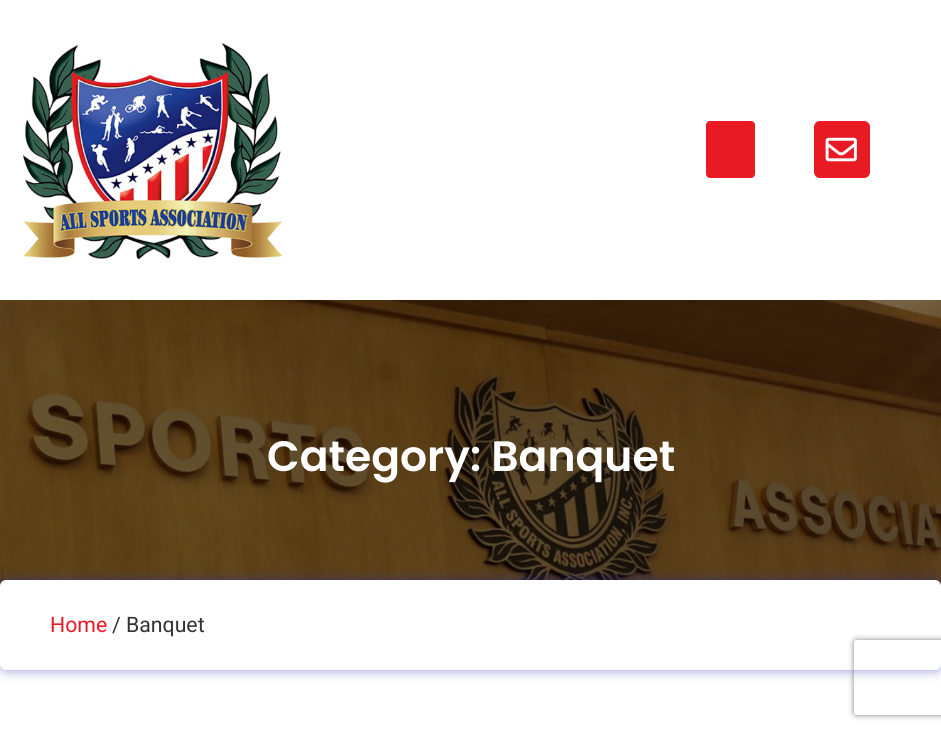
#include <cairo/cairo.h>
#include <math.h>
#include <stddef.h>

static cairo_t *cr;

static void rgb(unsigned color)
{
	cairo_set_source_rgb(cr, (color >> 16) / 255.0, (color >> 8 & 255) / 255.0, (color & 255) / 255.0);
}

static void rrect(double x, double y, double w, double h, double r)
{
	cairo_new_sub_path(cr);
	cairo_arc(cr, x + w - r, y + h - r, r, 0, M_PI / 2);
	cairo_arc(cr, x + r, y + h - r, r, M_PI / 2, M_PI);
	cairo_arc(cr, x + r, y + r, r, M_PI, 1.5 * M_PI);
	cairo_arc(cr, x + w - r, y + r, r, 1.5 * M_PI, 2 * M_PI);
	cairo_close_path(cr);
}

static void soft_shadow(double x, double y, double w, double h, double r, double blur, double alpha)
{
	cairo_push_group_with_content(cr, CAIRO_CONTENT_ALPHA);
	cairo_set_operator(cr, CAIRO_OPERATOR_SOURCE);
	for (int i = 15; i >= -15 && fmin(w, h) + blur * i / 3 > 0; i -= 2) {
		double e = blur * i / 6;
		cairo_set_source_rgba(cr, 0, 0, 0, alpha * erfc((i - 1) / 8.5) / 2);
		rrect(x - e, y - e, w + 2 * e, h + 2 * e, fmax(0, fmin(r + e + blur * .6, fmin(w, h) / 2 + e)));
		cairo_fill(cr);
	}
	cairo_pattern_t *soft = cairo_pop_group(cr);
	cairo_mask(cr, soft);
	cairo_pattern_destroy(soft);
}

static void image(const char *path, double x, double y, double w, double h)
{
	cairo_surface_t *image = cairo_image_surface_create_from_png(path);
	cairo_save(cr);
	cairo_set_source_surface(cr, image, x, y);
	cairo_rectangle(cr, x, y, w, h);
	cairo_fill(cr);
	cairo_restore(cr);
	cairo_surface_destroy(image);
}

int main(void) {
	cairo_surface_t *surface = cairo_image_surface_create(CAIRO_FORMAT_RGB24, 941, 732);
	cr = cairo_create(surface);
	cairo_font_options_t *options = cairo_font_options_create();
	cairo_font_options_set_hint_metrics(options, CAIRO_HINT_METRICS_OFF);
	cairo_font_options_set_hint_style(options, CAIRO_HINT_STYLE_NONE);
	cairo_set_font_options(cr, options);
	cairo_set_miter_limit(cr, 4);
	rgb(0xffffff);
	cairo_paint(cr);
	image("img/1.png", 22, 42, 260, 218);
	rgb(0xe81a24);
	rrect(706, 121, 49, 57, 4);
	cairo_fill(cr);
	rrect(814, 121, 56, 57, 6);
	cairo_fill(cr);
	image("img/2.png", 825, 137, 32, 25);
	image("img/3.png", 0, 300, 941, 286);
	rgb(0x2329ab);
	soft_shadow(0, 580, 941, 90, 6, 6, 0.5);
	rgb(0xffffff);
	rrect(0, 580, 941, 90, 6);
	cairo_fill(cr);
	cairo_save(cr);
	cairo_set_fill_rule(cr, CAIRO_FILL_RULE_EVEN_ODD);
	cairo_new_path(cr);
	cairo_move_to(cr, 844, 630);
	cairo_line_to(cr, 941, 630);
	cairo_line_to(cr, 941, 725);
	cairo_line_to(cr, 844, 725);
	cairo_close_path(cr);
	cairo_move_to(cr, 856.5, 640);
	cairo_line_to(cr, 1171.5, 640);
	cairo_curve_to(cr, 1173, 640, 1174, 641, 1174, 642.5);
	cairo_line_to(cr, 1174, 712.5);
	cairo_curve_to(cr, 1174, 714, 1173, 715, 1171.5, 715);
	cairo_line_to(cr, 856.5, 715);
	cairo_curve_to(cr, 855, 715, 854, 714, 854, 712.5);
	cairo_line_to(cr, 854, 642.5);
	cairo_curve_to(cr, 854, 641, 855, 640, 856.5, 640);
	cairo_close_path(cr);
	cairo_clip(cr);
	rgb(0x808080);
	soft_shadow(854, 640, 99, 75, 2.5, 3, 1);
	cairo_restore(cr);
	cairo_select_font_face(cr, "Poppins SemiBold", CAIRO_FONT_SLANT_NORMAL, CAIRO_FONT_WEIGHT_NORMAL);
	cairo_set_font_size(cr, 42.5);
	cairo_move_to(cr, 267, 471);
	cairo_show_text(cr, "Category: Banquet");
	cairo_select_font_face(cr, "Roboto", CAIRO_FONT_SLANT_NORMAL, CAIRO_FONT_WEIGHT_NORMAL);
	cairo_set_font_size(cr, 21.25);
	rgb(0xe81a24);
	cairo_move_to(cr, 50, 632);
	cairo_show_text(cr, "Home");
	rgb(0x333333);
	cairo_move_to(cr, 112, 632);
	cairo_show_text(cr, "/ Banquet");
	cairo_surface_write_to_png(surface, "page.png");
	cairo_font_options_destroy(options);
	cairo_destroy(cr);
	cairo_surface_destroy(surface);
	return 0;
}
